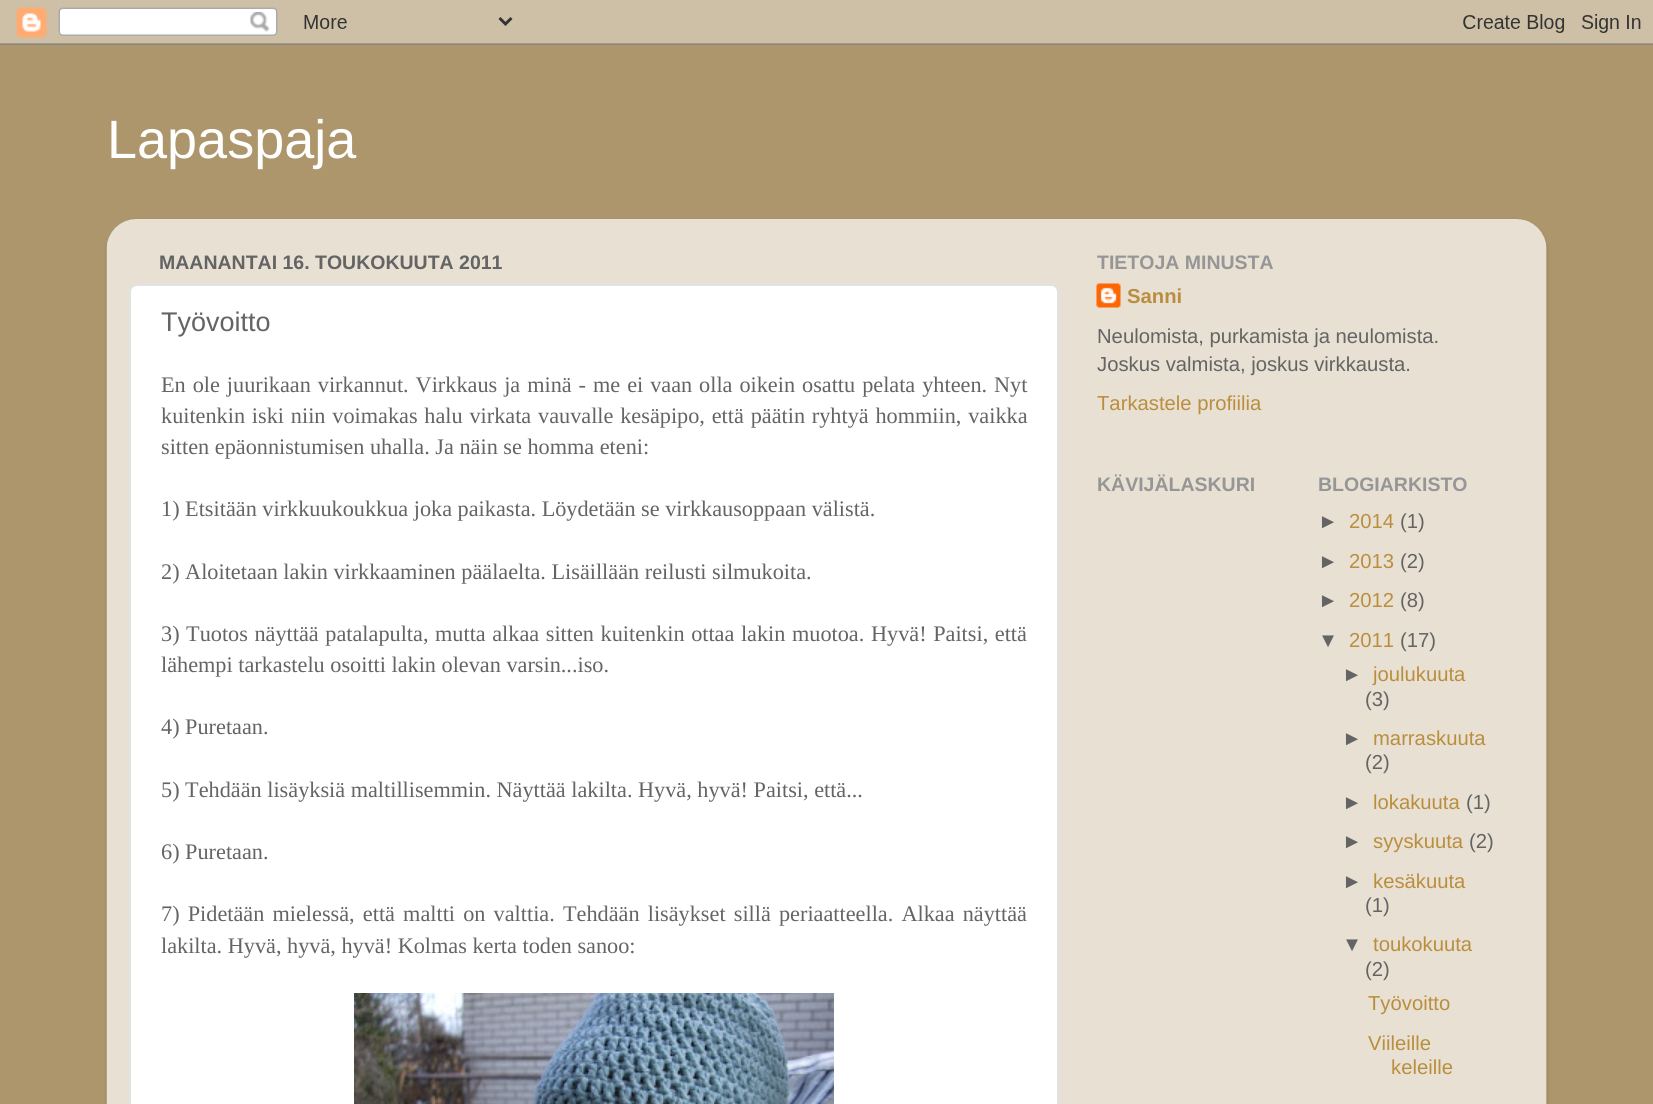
#include <cairo/cairo.h>
#include <math.h>
#include <stddef.h>

typedef struct { double x, y; const char *s; } line_t;
static cairo_t *cr;

static void rgb(unsigned color)
{
	cairo_set_source_rgb(cr, (color >> 16) / 255.0, (color >> 8 & 255) / 255.0, (color & 255) / 255.0);
}

static void tracked(double x, double y, const char *s, double letter, double word)
{
	cairo_move_to(cr, x, y);
	while (*s) {
		char ch[5] = {0};
		int n = 0;
		do ch[n++] = *s++; while ((*s & 0xC0) == 0x80);
		cairo_show_text(cr, ch);
		cairo_rel_move_to(cr, letter + word * (*ch == ' '), 0);
	}
}

static void rrect(double x, double y, double w, double h, double r)
{
	cairo_new_sub_path(cr);
	cairo_arc(cr, x + w - r, y + h - r, r, 0, M_PI / 2);
	cairo_arc(cr, x + r, y + h - r, r, M_PI / 2, M_PI);
	cairo_arc(cr, x + r, y + r, r, M_PI, 1.5 * M_PI);
	cairo_arc(cr, x + w - r, y + r, r, 1.5 * M_PI, 2 * M_PI);
	cairo_close_path(cr);
}

static void soft_shadow(double x, double y, double w, double h, double r, double blur, double alpha)
{
	cairo_push_group_with_content(cr, CAIRO_CONTENT_ALPHA);
	cairo_set_operator(cr, CAIRO_OPERATOR_SOURCE);
	for (int i = 15; i >= -15 && fmin(w, h) + blur * i / 3 > 0; i -= 2) {
		double e = blur * i / 6;
		cairo_set_source_rgba(cr, 0, 0, 0, alpha * erfc((i - 1) / 8.5) / 2);
		rrect(x - e, y - e, w + 2 * e, h + 2 * e, fmax(0, fmin(r + e + blur * .6, fmin(w, h) / 2 + e)));
		cairo_fill(cr);
	}
	cairo_pattern_t *soft = cairo_pop_group(cr);
	cairo_mask(cr, soft);
	cairo_pattern_destroy(soft);
}

static void image(const char *path, double x, double y, double w, double h)
{
	cairo_surface_t *image = cairo_image_surface_create_from_png(path);
	cairo_save(cr);
	cairo_set_source_surface(cr, image, x, y);
	cairo_rectangle(cr, x, y, w, h);
	cairo_fill(cr);
	cairo_restore(cr);
	cairo_surface_destroy(image);
}

int main(void) {
	cairo_surface_t *surface = cairo_image_surface_create(CAIRO_FORMAT_RGB24, 1653, 1104);
	cr = cairo_create(surface);
	cairo_font_options_t *options = cairo_font_options_create();
	cairo_font_options_set_hint_metrics(options, CAIRO_HINT_METRICS_OFF);
	cairo_font_options_set_hint_style(options, CAIRO_HINT_STYLE_NONE);
	cairo_set_font_options(cr, options);
	cairo_set_miter_limit(cr, 4);
	rgb(0xad966c);
	cairo_paint(cr);
	image("img/1.png", 0, 0, 1653, 45);
	cairo_save(cr);
	cairo_set_fill_rule(cr, CAIRO_FILL_RULE_EVEN_ODD);
	cairo_new_path(cr);
	cairo_move_to(cr, 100, 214);
	cairo_line_to(cr, 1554, 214);
	cairo_line_to(cr, 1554, 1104);
	cairo_line_to(cr, 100, 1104);
	cairo_close_path(cr);
	cairo_move_to(cr, 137, 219);
	cairo_line_to(cr, 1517, 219);
	cairo_curve_to(cr, 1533.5, 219, 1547, 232.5, 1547, 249);
	cairo_line_to(cr, 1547, 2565);
	cairo_line_to(cr, 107, 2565);
	cairo_line_to(cr, 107, 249);
	cairo_curve_to(cr, 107, 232.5, 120.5, 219, 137, 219);
	cairo_close_path(cr);
	cairo_clip(cr);
	rgb(0x000000);
	soft_shadow(107, 221, 1440, 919, 30, 2, 0.15);
	cairo_restore(cr);
	image("img/2.png", 106, 219, 1441, 885);
	rgb(0xffffff);
	rrect(130, 285, 928, 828, 7);
	cairo_fill_preserve(cr);
	rgb(0xe2e2e2);
	cairo_stroke(cr);
	image("img/3.png", 354, 993, 480, 111);
	image("img/4.png", 1096, 283, 25, 25);
	cairo_select_font_face(cr, "Liberation Sans", CAIRO_FONT_SLANT_NORMAL, CAIRO_FONT_WEIGHT_NORMAL);
	cairo_set_font_size(cr, 54);
	rgb(0xffffff);
	cairo_move_to(cr, 107, 158);
	cairo_show_text(cr, "Lapaspaja");
	cairo_select_font_face(cr, "Liberation Sans", CAIRO_FONT_SLANT_NORMAL, CAIRO_FONT_WEIGHT_BOLD);
	cairo_set_font_size(cr, 19.5);
	rgb(0x646464);
	cairo_move_to(cr, 159, 269);
	cairo_show_text(cr, "MAANANTAI 16. TOUKOKUUTA 2011");
	cairo_select_font_face(cr, "Liberation Sans", CAIRO_FONT_SLANT_NORMAL, CAIRO_FONT_WEIGHT_NORMAL);
	cairo_set_font_size(cr, 27);
	cairo_move_to(cr, 161, 331);
	cairo_show_text(cr, "Työvoitto");
	cairo_select_font_face(cr, "Liberation Serif", CAIRO_FONT_SLANT_NORMAL, CAIRO_FONT_WEIGHT_NORMAL);
	cairo_set_font_size(cr, 22.25);
	tracked(161, 392, "En ole juurikaan virkannut. Virkkaus ja minä - me ei vaan olla oikein osattu pelata yhteen. Nyt", 0, 1.4);
	tracked(161, 423, "kuitenkin iski niin voimakas halu virkata vauvalle kesäpipo, että päätin ryhtyä hommiin, vaikka", 0, 1.25);
	{
		static const line_t items[] = {
			{161, 454, "sitten epäonnistumisen uhalla. Ja näin se homma eteni:"},
			{161, 516, "1) Etsitään virkkuukoukkua joka paikasta. Löydetään se virkkausoppaan välistä."},
			{161, 579, "2) Aloitetaan lakin virkkaaminen päälaelta. Lisäillään reilusti silmukoita."},
		};
		for (size_t i = 0; i < sizeof items / sizeof *items; i++) {
			cairo_move_to(cr, items[i].x, items[i].y);
			cairo_show_text(cr, items[i].s);
		}
	}
	tracked(161, 641, "3) Tuotos näyttää patalapulta, mutta alkaa sitten kuitenkin ottaa lakin muotoa.", 0, 1);
	tracked(871, 641, "Hyvä! Paitsi, että", 0, 1);
	{
		static const line_t items[] = {
			{161, 672, "lähempi tarkastelu osoitti lakin olevan varsin...iso."},
			{161, 734, "4) Puretaan."},
			{161, 797, "5) Tehdään lisäyksiä maltillisemmin. Näyttää lakilta. Hyvä, hyvä! Paitsi, että..."},
			{161, 859, "6) Puretaan."},
		};
		for (size_t i = 0; i < sizeof items / sizeof *items; i++) {
			cairo_move_to(cr, items[i].x, items[i].y);
			cairo_show_text(cr, items[i].s);
		}
	}
	tracked(161, 921, "7) Pidetään mielessä, että maltti on valttia. Tehdään lisäykset sillä periaatteella. Alkaa näyttää", 0, 2.6);
	cairo_move_to(cr, 161, 953);
	cairo_show_text(cr, "lakilta. Hyvä, hyvä, hyvä! Kolmas kerta toden sanoo:");
	cairo_select_font_face(cr, "Liberation Sans", CAIRO_FONT_SLANT_NORMAL, CAIRO_FONT_WEIGHT_BOLD);
	cairo_set_font_size(cr, 19.5);
	rgb(0x969696);
	cairo_move_to(cr, 1097, 269);
	cairo_show_text(cr, "TIETOJA MINUSTA");
	cairo_set_font_size(cr, 20.25);
	rgb(0xba8e3e);
	cairo_move_to(cr, 1127, 303);
	cairo_show_text(cr, "Sanni");
	cairo_select_font_face(cr, "Liberation Sans", CAIRO_FONT_SLANT_NORMAL, CAIRO_FONT_WEIGHT_NORMAL);
	rgb(0x646464);
	cairo_move_to(cr, 1097, 343);
	cairo_show_text(cr, "Neulomista, purkamista ja neulomista.");
	cairo_move_to(cr, 1097, 371);
	cairo_show_text(cr, "Joskus valmista, joskus virkkausta.");
	rgb(0xba8e3e);
	cairo_move_to(cr, 1097, 410);
	cairo_show_text(cr, "Tarkastele profiilia");
	cairo_select_font_face(cr, "Liberation Sans", CAIRO_FONT_SLANT_NORMAL, CAIRO_FONT_WEIGHT_BOLD);
	cairo_set_font_size(cr, 19.5);
	rgb(0x969696);
	cairo_move_to(cr, 1097, 491);
	cairo_show_text(cr, "KÄVIJÄLASKURI");
	cairo_move_to(cr, 1318, 491);
	cairo_show_text(cr, "BLOGIARKISTO");
	cairo_select_font_face(cr, "Liberation Sans", CAIRO_FONT_SLANT_NORMAL, CAIRO_FONT_WEIGHT_NORMAL);
	cairo_set_font_size(cr, 20.25);
	rgb(0x646464);
	cairo_move_to(cr, 1318, 528);
	cairo_show_text(cr, "►");
	rgb(0xba8e3e);
	cairo_move_to(cr, 1349, 528);
	cairo_show_text(cr, "2014");
	rgb(0x646464);
	cairo_move_to(cr, 1400, 528);
	cairo_show_text(cr, "(1)");
	cairo_move_to(cr, 1318, 568);
	cairo_show_text(cr, "►");
	rgb(0xba8e3e);
	cairo_move_to(cr, 1349, 568);
	cairo_show_text(cr, "2013");
	rgb(0x646464);
	cairo_move_to(cr, 1400, 568);
	cairo_show_text(cr, "(2)");
	cairo_move_to(cr, 1318, 607);
	cairo_show_text(cr, "►");
	rgb(0xba8e3e);
	cairo_move_to(cr, 1349, 607);
	cairo_show_text(cr, "2012");
	rgb(0x646464);
	cairo_move_to(cr, 1400, 607);
	cairo_show_text(cr, "(8)");
	cairo_move_to(cr, 1318, 647);
	cairo_show_text(cr, "▼");
	rgb(0xba8e3e);
	cairo_move_to(cr, 1349, 647);
	cairo_show_text(cr, "2011");
	rgb(0x646464);
	cairo_move_to(cr, 1400, 647);
	cairo_show_text(cr, "(17)");
	cairo_move_to(cr, 1342, 681);
	cairo_show_text(cr, "►");
	rgb(0xba8e3e);
	cairo_move_to(cr, 1373, 681);
	cairo_show_text(cr, "joulukuuta");
	rgb(0x646464);
	cairo_move_to(cr, 1365, 706);
	cairo_show_text(cr, "(3)");
	cairo_move_to(cr, 1342, 745);
	cairo_show_text(cr, "►");
	rgb(0xba8e3e);
	cairo_move_to(cr, 1373, 745);
	cairo_show_text(cr, "marraskuuta");
	rgb(0x646464);
	cairo_move_to(cr, 1365, 769);
	cairo_show_text(cr, "(2)");
	cairo_move_to(cr, 1342, 809);
	cairo_show_text(cr, "►");
	rgb(0xba8e3e);
	cairo_move_to(cr, 1373, 809);
	cairo_show_text(cr, "lokakuuta");
	rgb(0x646464);
	cairo_move_to(cr, 1466, 809);
	cairo_show_text(cr, "(1)");
	cairo_move_to(cr, 1342, 848);
	cairo_show_text(cr, "►");
	rgb(0xba8e3e);
	cairo_move_to(cr, 1373, 848);
	cairo_show_text(cr, "syyskuuta");
	rgb(0x646464);
	cairo_move_to(cr, 1469, 848);
	cairo_show_text(cr, "(2)");
	cairo_move_to(cr, 1342, 888);
	cairo_show_text(cr, "►");
	rgb(0xba8e3e);
	cairo_move_to(cr, 1373, 888);
	cairo_show_text(cr, "kesäkuuta");
	rgb(0x646464);
	cairo_move_to(cr, 1365, 912);
	cairo_show_text(cr, "(1)");
	cairo_move_to(cr, 1342, 951);
	cairo_show_text(cr, "▼");
	rgb(0xba8e3e);
	cairo_move_to(cr, 1373, 951);
	cairo_show_text(cr, "toukokuuta");
	rgb(0x646464);
	cairo_move_to(cr, 1365, 976);
	cairo_show_text(cr, "(2)");
	rgb(0xba8e3e);
	{
		static const line_t items[] = {
			{1368, 1010, "Työvoitto"},
			{1368, 1050, "Viileille"},
			{1391, 1074, "keleille"},
		};
		for (size_t i = 0; i < sizeof items / sizeof *items; i++) {
			cairo_move_to(cr, items[i].x, items[i].y);
			cairo_show_text(cr, items[i].s);
		}
	}
	cairo_surface_write_to_png(surface, "page.png");
	cairo_font_options_destroy(options);
	cairo_destroy(cr);
	cairo_surface_destroy(surface);
	return 0;
}
